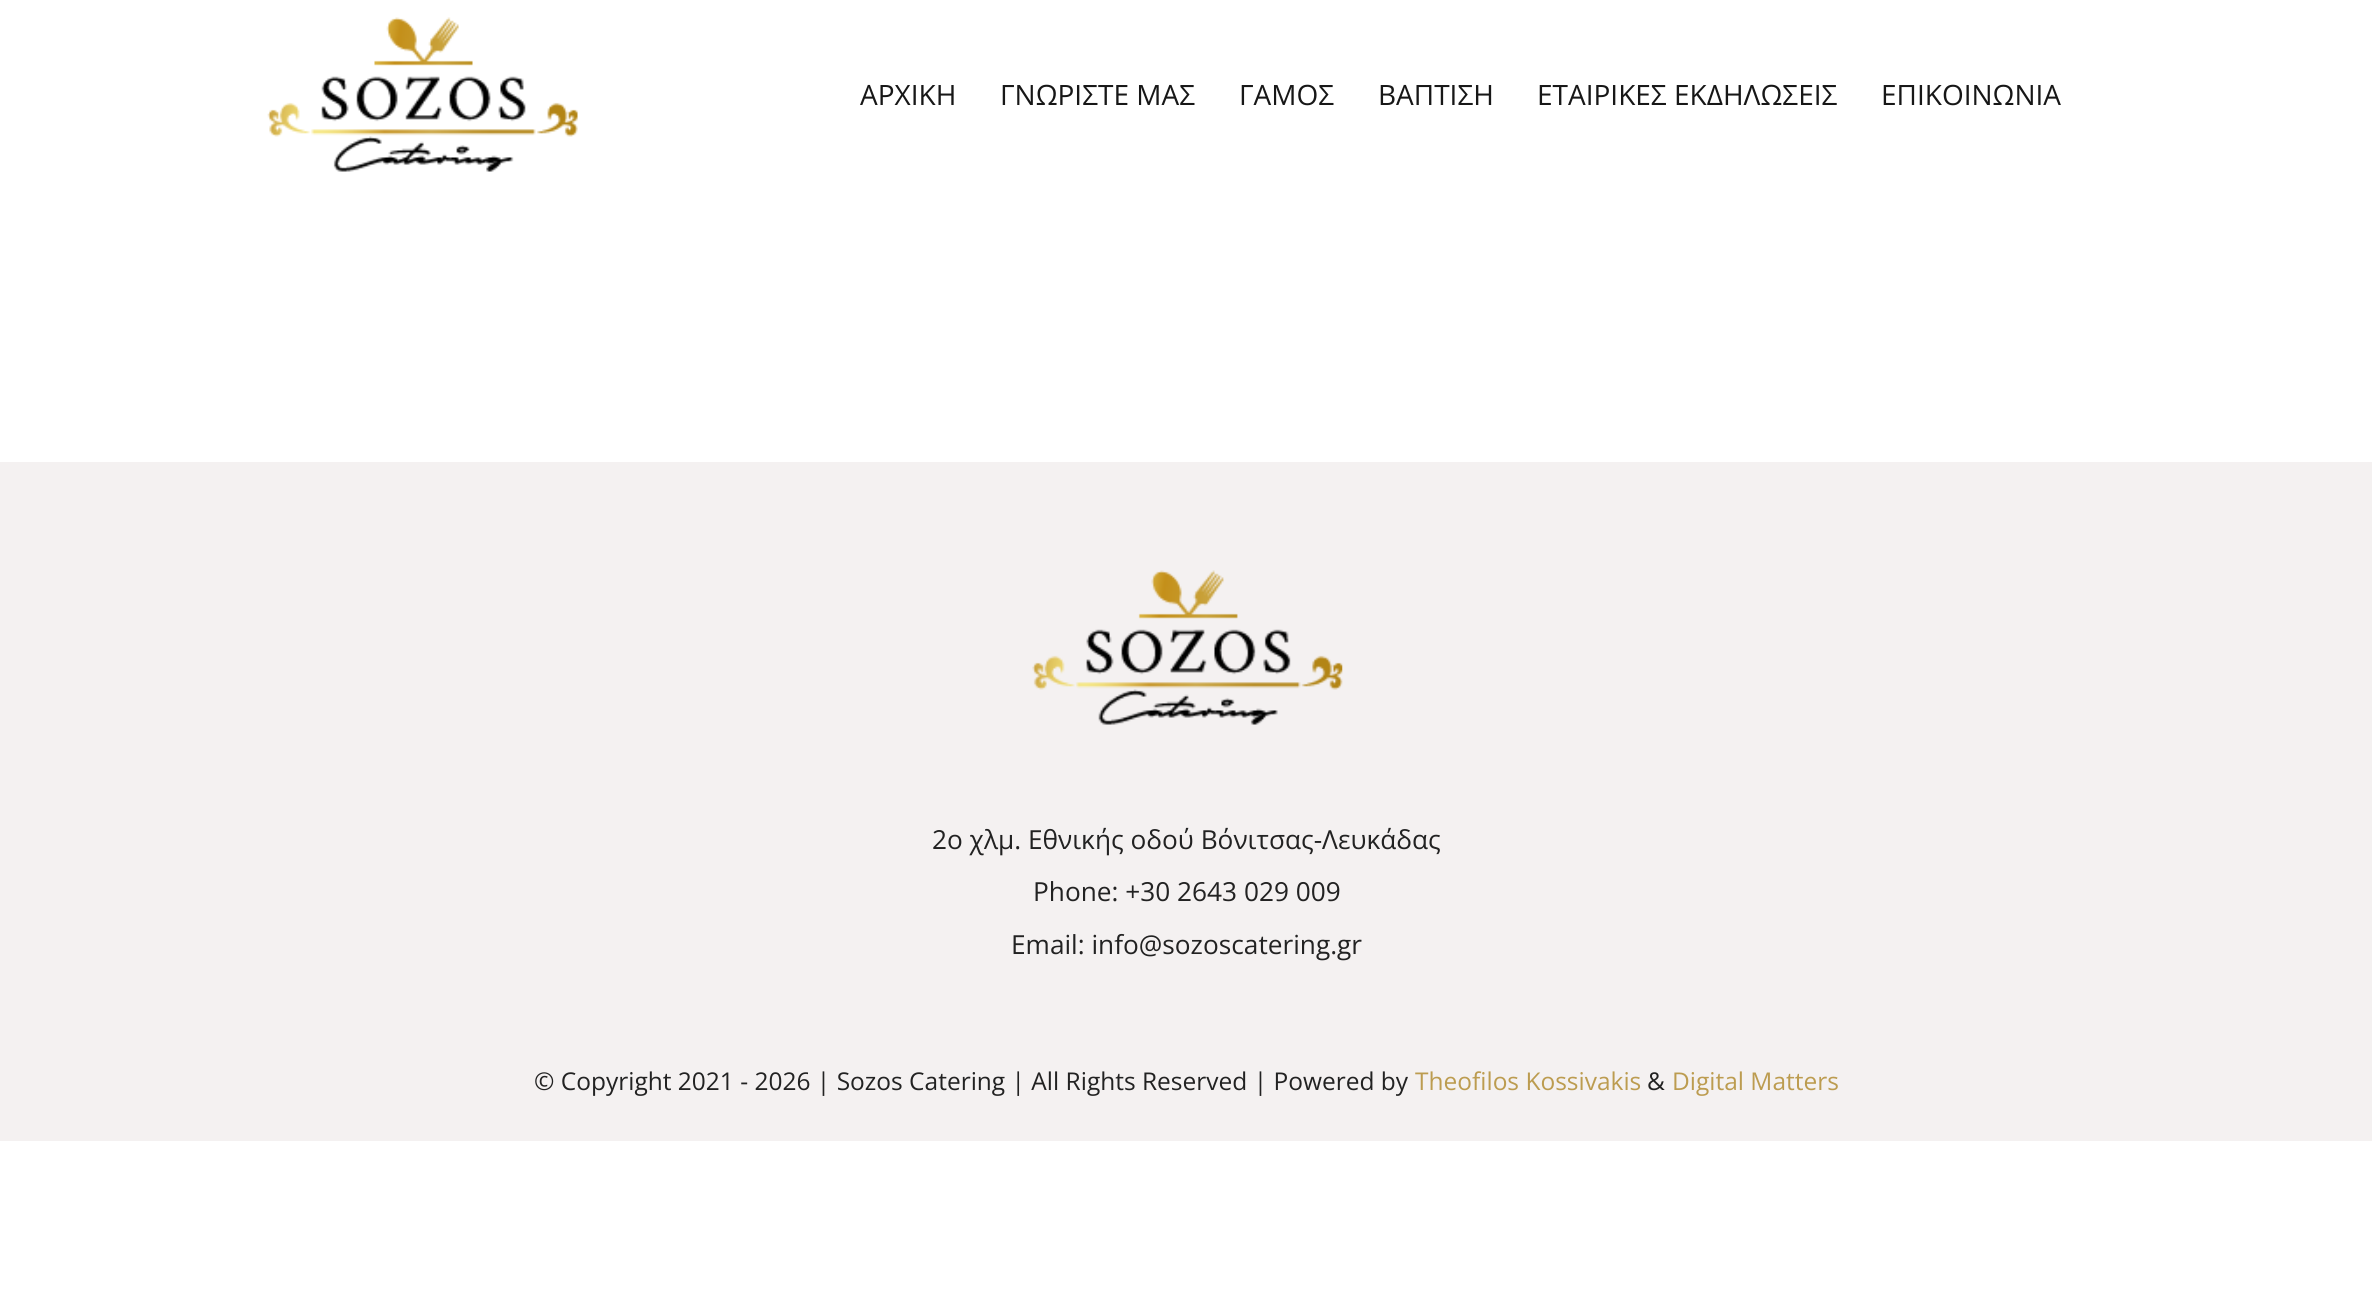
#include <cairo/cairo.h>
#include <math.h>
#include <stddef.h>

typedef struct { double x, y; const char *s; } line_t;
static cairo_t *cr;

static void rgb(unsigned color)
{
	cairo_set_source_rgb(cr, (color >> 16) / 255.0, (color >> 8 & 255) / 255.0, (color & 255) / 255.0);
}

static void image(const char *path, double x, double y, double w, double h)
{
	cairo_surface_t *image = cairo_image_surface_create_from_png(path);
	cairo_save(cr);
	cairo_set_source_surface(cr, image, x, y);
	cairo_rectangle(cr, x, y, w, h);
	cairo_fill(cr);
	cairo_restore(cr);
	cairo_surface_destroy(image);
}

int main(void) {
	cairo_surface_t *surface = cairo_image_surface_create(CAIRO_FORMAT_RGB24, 2372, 1295);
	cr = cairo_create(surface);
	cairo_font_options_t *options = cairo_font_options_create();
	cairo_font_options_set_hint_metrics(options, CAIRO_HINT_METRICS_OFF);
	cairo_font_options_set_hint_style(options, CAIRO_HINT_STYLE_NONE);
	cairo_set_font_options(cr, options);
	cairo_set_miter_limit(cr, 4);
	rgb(0xffffff);
	cairo_paint(cr);
	image("img/1.png", 267, 17, 311, 155);
	rgb(0xf4f1f1);
	cairo_rectangle(cr, 0, 462, 2372, 679);
	cairo_fill(cr);
	image("img/2.png", 1032, 570, 311, 155);
	cairo_select_font_face(cr, "Open Sans", CAIRO_FONT_SLANT_NORMAL, CAIRO_FONT_WEIGHT_NORMAL);
	cairo_set_font_size(cr, 28);
	rgb(0x171717);
	{
		static const line_t items[] = {
			{860, 105, "ΑΡΧΙΚΗ"},
			{1000, 105, "ΓΝΩΡΙΣΤΕ ΜΑΣ"},
			{1239, 105, "ΓΑΜΟΣ"},
			{1378, 105, "ΒΑΠΤΙΣΗ"},
			{1537, 105, "ΕΤΑΙΡΙΚΕΣ ΕΚΔΗΛΩΣΕΙΣ"},
			{1881, 105, "ΕΠΙΚΟΙΝΩΝΙΑ"},
		};
		for (size_t i = 0; i < sizeof items / sizeof *items; i++) {
			cairo_move_to(cr, items[i].x, items[i].y);
			cairo_show_text(cr, items[i].s);
		}
	}
	cairo_set_font_size(cr, 26.25);
	rgb(0x222222);
	{
		static const line_t items[] = {
			{932, 849, "2ο χλμ. Εθνικής οδού Βόνιτσας-Λευκάδας"},
			{1033, 901, "Phone: +30 2643 029 009"},
			{1011, 954, "Email: info@sozoscatering.gr"},
		};
		for (size_t i = 0; i < sizeof items / sizeof *items; i++) {
			cairo_move_to(cr, items[i].x, items[i].y);
			cairo_show_text(cr, items[i].s);
		}
	}
	cairo_set_font_size(cr, 24.5);
	cairo_move_to(cr, 534, 1090);
	cairo_show_text(cr, "© Copyright 2021 - 2026 | Sozos Catering | All Rights Reserved | Powered by");
	rgb(0xbc9c50);
	cairo_move_to(cr, 1415, 1090);
	cairo_show_text(cr, "Theofilos Kossivakis");
	rgb(0x222222);
	cairo_move_to(cr, 1647, 1090);
	cairo_show_text(cr, "&");
	rgb(0xbc9c50);
	cairo_move_to(cr, 1672, 1090);
	cairo_show_text(cr, "Digital Matters");
	cairo_surface_write_to_png(surface, "page.png");
	cairo_font_options_destroy(options);
	cairo_destroy(cr);
	cairo_surface_destroy(surface);
	return 0;
}
